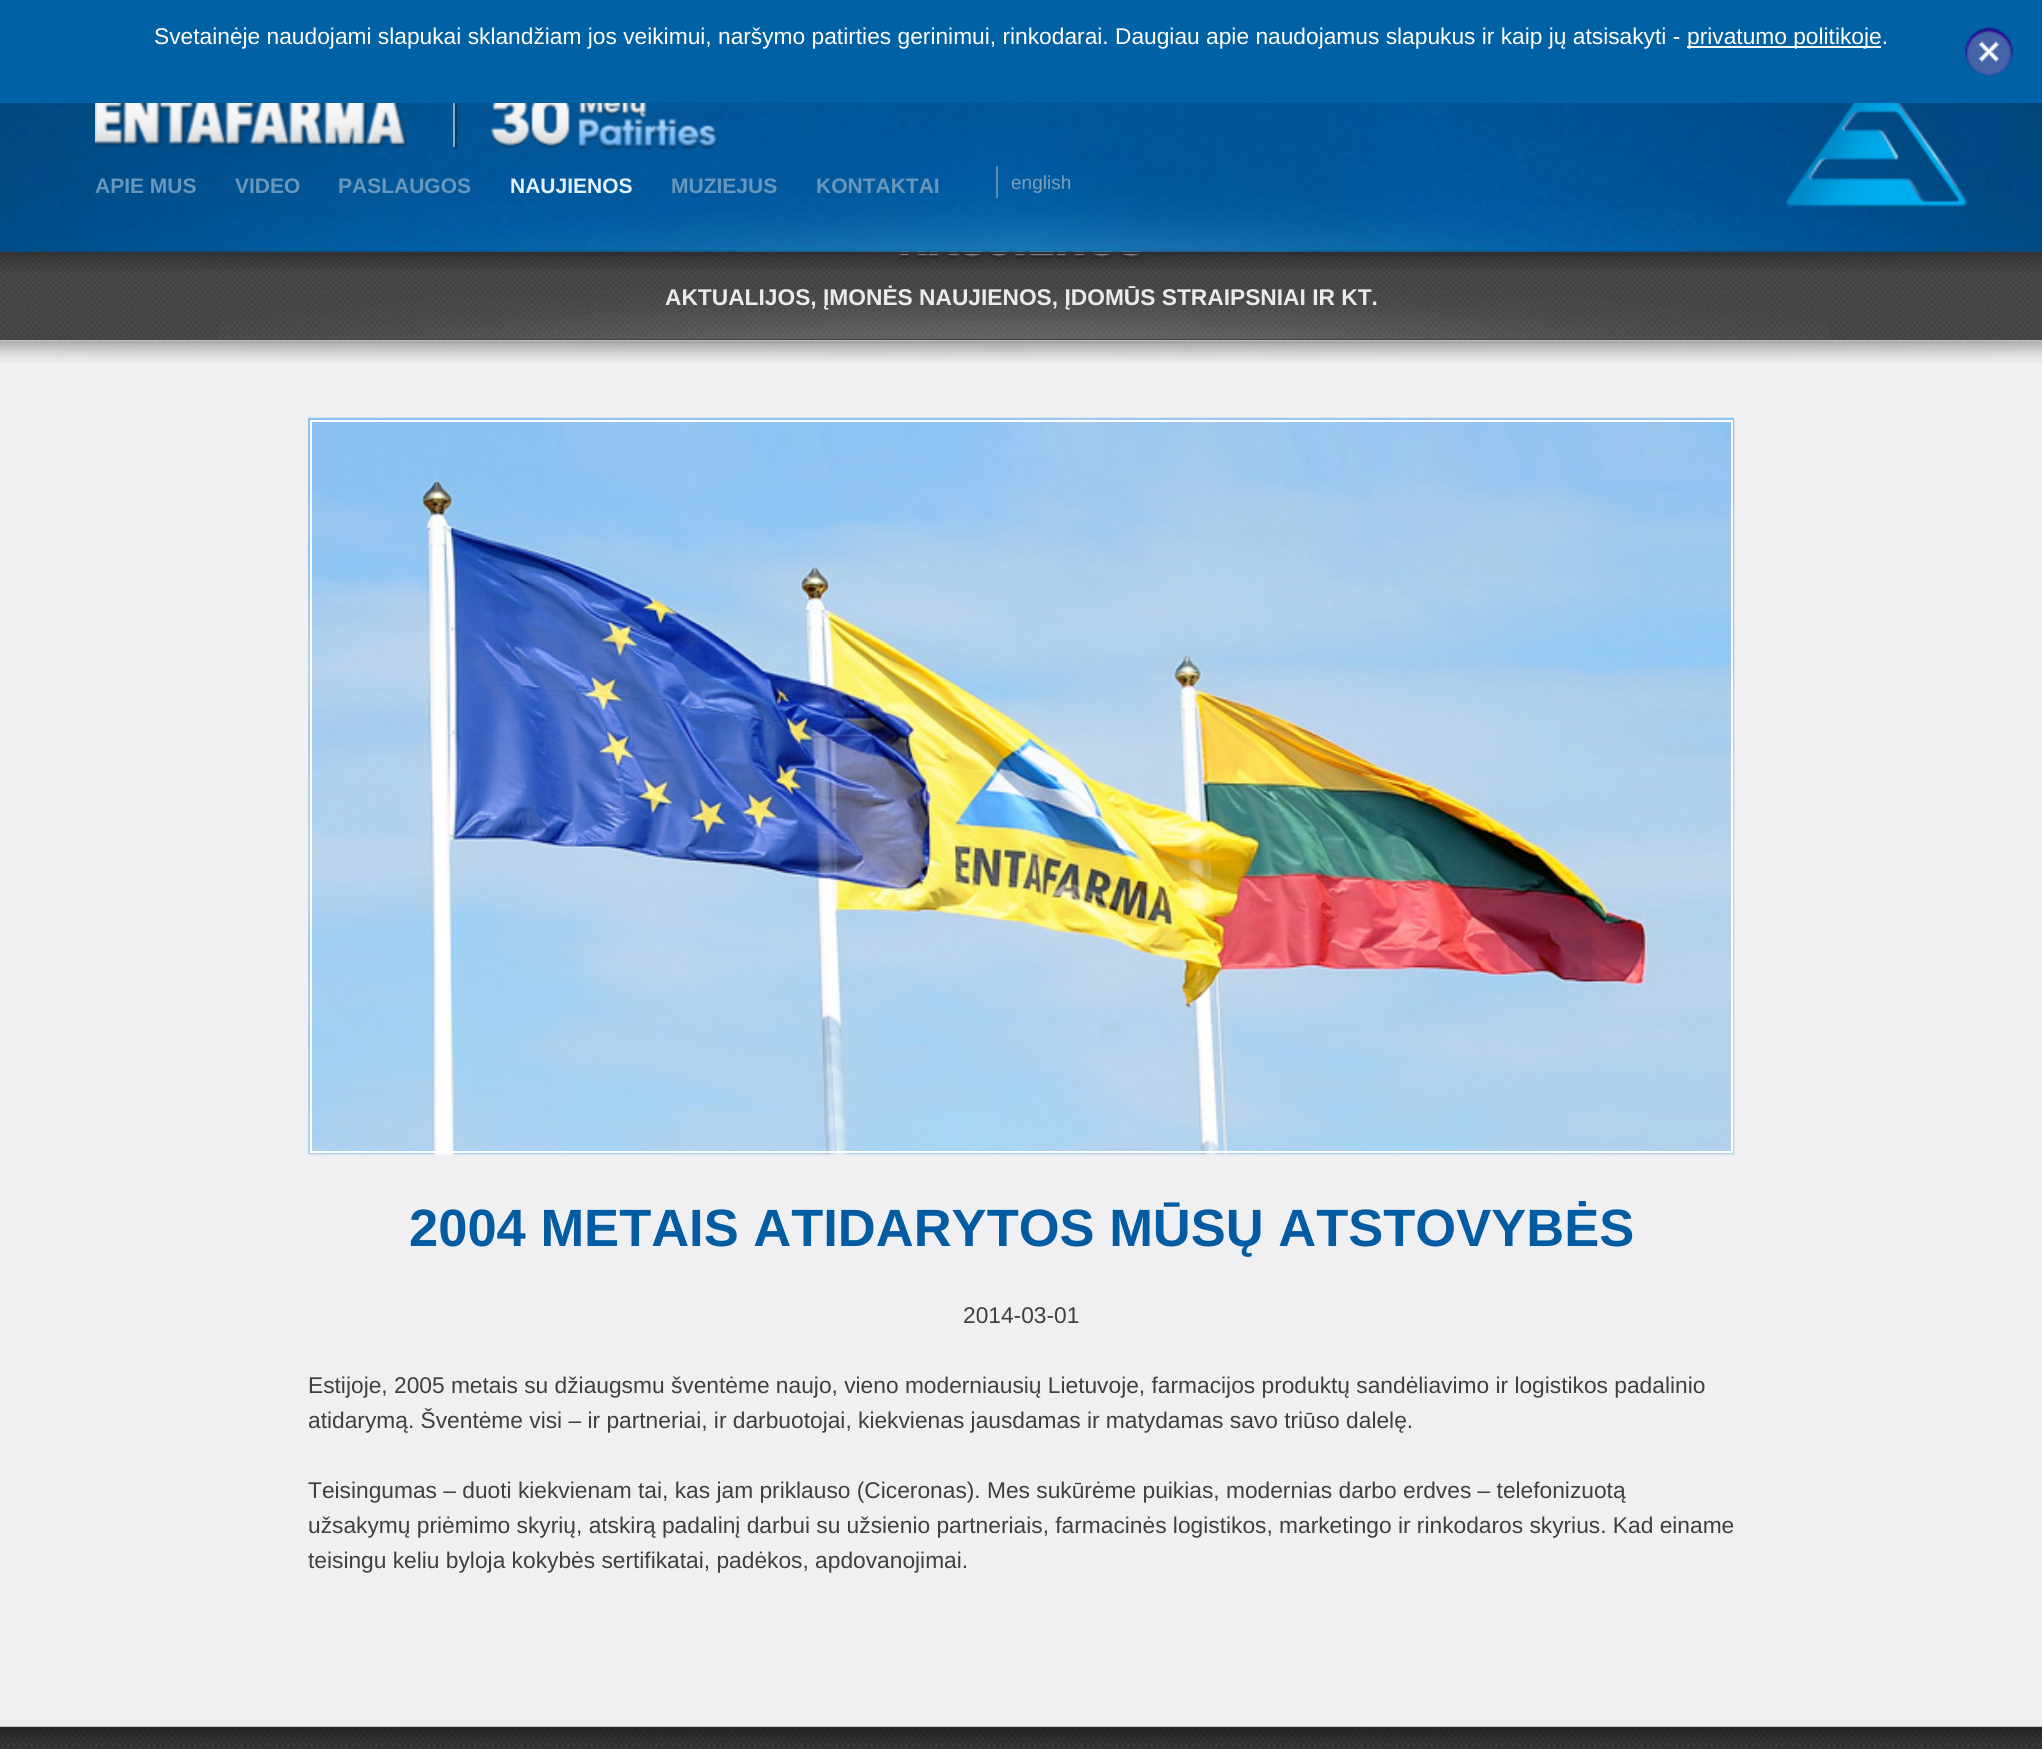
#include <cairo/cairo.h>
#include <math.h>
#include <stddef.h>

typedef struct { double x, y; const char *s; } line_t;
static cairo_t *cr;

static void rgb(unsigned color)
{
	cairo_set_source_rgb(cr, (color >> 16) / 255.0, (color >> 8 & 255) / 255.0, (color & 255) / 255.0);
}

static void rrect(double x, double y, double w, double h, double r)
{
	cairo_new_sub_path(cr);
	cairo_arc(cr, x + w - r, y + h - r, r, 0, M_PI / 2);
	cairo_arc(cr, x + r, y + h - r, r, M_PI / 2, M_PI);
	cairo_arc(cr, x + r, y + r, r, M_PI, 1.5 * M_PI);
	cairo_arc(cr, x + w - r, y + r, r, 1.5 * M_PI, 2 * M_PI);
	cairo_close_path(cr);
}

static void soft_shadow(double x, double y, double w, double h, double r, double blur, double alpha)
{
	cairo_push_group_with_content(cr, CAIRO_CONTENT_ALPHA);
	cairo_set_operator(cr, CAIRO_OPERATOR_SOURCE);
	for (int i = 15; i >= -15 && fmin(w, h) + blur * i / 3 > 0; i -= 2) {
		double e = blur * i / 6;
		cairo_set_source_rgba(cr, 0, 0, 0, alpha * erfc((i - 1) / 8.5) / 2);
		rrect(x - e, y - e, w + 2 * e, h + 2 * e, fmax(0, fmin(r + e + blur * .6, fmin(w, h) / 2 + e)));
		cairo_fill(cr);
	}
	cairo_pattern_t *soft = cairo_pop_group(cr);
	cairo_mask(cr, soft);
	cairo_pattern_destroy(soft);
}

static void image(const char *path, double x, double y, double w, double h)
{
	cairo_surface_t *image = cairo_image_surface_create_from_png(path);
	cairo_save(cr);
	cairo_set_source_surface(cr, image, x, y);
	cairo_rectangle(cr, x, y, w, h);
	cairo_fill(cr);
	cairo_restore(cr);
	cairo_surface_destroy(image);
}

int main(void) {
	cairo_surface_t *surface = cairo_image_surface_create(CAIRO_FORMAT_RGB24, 2042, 1749);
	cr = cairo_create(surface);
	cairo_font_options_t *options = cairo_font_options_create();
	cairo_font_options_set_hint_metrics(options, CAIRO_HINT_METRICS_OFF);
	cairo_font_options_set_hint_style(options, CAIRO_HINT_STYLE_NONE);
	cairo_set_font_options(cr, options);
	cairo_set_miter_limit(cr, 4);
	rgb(0xf0f0f2);
	cairo_paint(cr);
	image("img/7.png", 0, 251, 2042, 88);
	image("img/8.png", 899, 251, 246, 8);
	image("img/2.png", 0, 103, 2042, 149);
	rgb(0x97aec1);
	cairo_rectangle(cr, 453, 103, 2, 44);
	cairo_fill(cr);
	rgb(0x000000);
	soft_shadow(455, 93, 2, 56, 0, 1, 0.15);
	rgb(0x0061a4);
	cairo_rectangle(cr, 0, 0, 2042, 103);
	cairo_fill(cr);
	rgb(0xffffff);
	cairo_rectangle(cr, 1687, 46, 194, 2);
	cairo_fill(cr);
	image("img/1.png", 1965, 27, 48, 49);
	rgb(0x474747);
	cairo_rectangle(cr, 0, 252, 2042, 2);
	cairo_fill(cr);
	image("img/3.png", 95, 103, 313, 44);
	cairo_set_source_rgba(cr, 0, 0, 0, 0.2);
	cairo_rectangle(cr, 455, 103, 2, 46);
	cairo_fill(cr);
	image("img/4.png", 490, 103, 228, 47);
	rgb(0x608fb4);
	cairo_rectangle(cr, 996, 166, 2, 32);
	cairo_fill(cr);
	image("img/5.png", 1786, 103, 183, 104);
	image("img/6.png", 0, 252, 2042, 18);
	rgb(0x434343);
	cairo_rectangle(cr, 0, 339, 2042, 1);
	cairo_fill(cr);
	image("img/10.png", 0, 340, 2042, 23);
	image("img/11.png", 308, 417, 1427, 738);
	cairo_rectangle(cr, 311, 421, 1421, 731);
	rgb(0xffffff);
	cairo_stroke(cr);
	image("img/12.png", 0, 1726, 2042, 23);
	rgb(0x2a2a2a);
	cairo_rectangle(cr, 0, 1727, 2042, 2);
	cairo_fill(cr);
	image("img/13.png", 0, 1728, 2042, 15);
	cairo_select_font_face(cr, "Liberation Sans", CAIRO_FONT_SLANT_NORMAL, CAIRO_FONT_WEIGHT_NORMAL);
	cairo_set_font_size(cr, 22.75);
	rgb(0xffffff);
	cairo_move_to(cr, 154, 44);
	cairo_show_text(cr, "Svetainėje naudojami slapukai sklandžiam jos veikimui, naršymo patirties gerinimui, rinkodarai. Daugiau apie naudojamus slapukus ir kaip jų atsisakyti -");
	cairo_move_to(cr, 1687, 44);
	cairo_show_text(cr, "privatumo politikoje.");
	cairo_set_font_size(cr, 19);
	rgb(0x7b9eb9);
	cairo_move_to(cr, 1011, 189);
	cairo_show_text(cr, "english");
	cairo_select_font_face(cr, "Liberation Sans", CAIRO_FONT_SLANT_NORMAL, CAIRO_FONT_WEIGHT_BOLD);
	cairo_set_font_size(cr, 21);
	rgb(0x6797bc);
	{
		static const line_t items[] = {
			{95, 193, "APIE MUS"},
			{235, 193, "VIDEO"},
			{338, 193, "PASLAUGOS"},
		};
		for (size_t i = 0; i < sizeof items / sizeof *items; i++) {
			cairo_move_to(cr, items[i].x, items[i].y);
			cairo_show_text(cr, items[i].s);
		}
	}
	rgb(0xe0f2ff);
	cairo_move_to(cr, 510, 193);
	cairo_show_text(cr, "NAUJIENOS");
	rgb(0x6797bc);
	cairo_move_to(cr, 671, 193);
	cairo_show_text(cr, "MUZIEJUS");
	cairo_move_to(cr, 816, 193);
	cairo_show_text(cr, "KONTAKTAI");
	cairo_set_font_size(cr, 22.75);
	rgb(0xeaeaea);
	cairo_move_to(cr, 665, 305);
	cairo_show_text(cr, "AKTUALIJOS, ĮMONĖS NAUJIENOS, ĮDOMŪS STRAIPSNIAI IR KT.");
	image("img/9.png", 219, 289, 1611, 50);
	cairo_set_font_size(cr, 52.5);
	rgb(0x035ca1);
	cairo_move_to(cr, 409, 1246);
	cairo_show_text(cr, "2004 METAIS ATIDARYTOS MŪSŲ ATSTOVYBĖS");
	cairo_select_font_face(cr, "Liberation Sans", CAIRO_FONT_SLANT_NORMAL, CAIRO_FONT_WEIGHT_NORMAL);
	cairo_set_font_size(cr, 22.75);
	rgb(0x3f3f3f);
	{
		static const line_t items[] = {
			{963, 1323, "2014-03-01"},
			{308, 1393, "Estijoje, 2005 metais su džiaugsmu šventėme naujo, vieno moderniausių Lietuvoje, farmacijos produktų sandėliavimo ir logistikos padalinio"},
			{308, 1428, "atidarymą. Šventėme visi – ir partneriai, ir darbuotojai, kiekvienas jausdamas ir matydamas savo triūso dalelę."},
			{308, 1498, "Teisingumas – duoti kiekvienam tai, kas jam priklauso (Ciceronas). Mes sukūrėme puikias, modernias darbo erdves – telefonizuotą"},
			{308, 1533, "užsakymų priėmimo skyrių, atskirą padalinį darbui su užsienio partneriais, farmacinės logistikos, marketingo ir rinkodaros skyrius. Kad einame"},
			{308, 1568, "teisingu keliu byloja kokybės sertifikatai, padėkos, apdovanojimai."},
		};
		for (size_t i = 0; i < sizeof items / sizeof *items; i++) {
			cairo_move_to(cr, items[i].x, items[i].y);
			cairo_show_text(cr, items[i].s);
		}
	}
	cairo_surface_write_to_png(surface, "page.png");
	cairo_font_options_destroy(options);
	cairo_destroy(cr);
	cairo_surface_destroy(surface);
	return 0;
}
